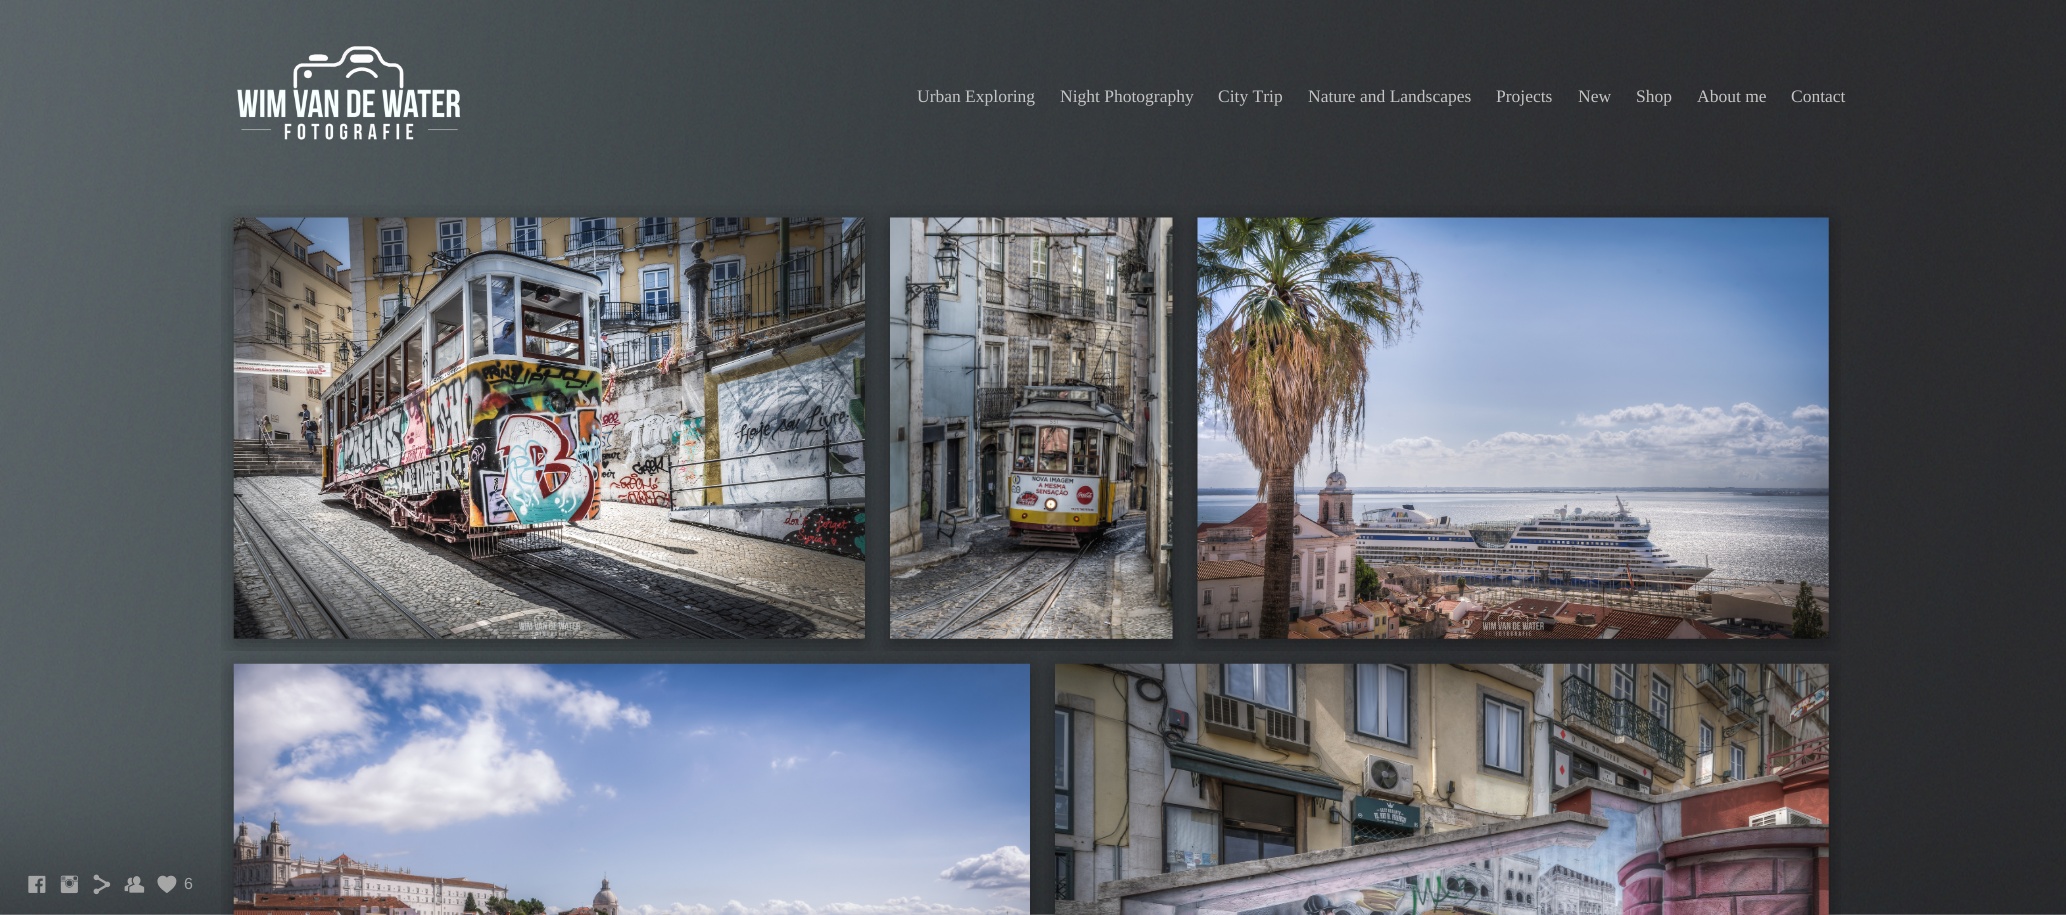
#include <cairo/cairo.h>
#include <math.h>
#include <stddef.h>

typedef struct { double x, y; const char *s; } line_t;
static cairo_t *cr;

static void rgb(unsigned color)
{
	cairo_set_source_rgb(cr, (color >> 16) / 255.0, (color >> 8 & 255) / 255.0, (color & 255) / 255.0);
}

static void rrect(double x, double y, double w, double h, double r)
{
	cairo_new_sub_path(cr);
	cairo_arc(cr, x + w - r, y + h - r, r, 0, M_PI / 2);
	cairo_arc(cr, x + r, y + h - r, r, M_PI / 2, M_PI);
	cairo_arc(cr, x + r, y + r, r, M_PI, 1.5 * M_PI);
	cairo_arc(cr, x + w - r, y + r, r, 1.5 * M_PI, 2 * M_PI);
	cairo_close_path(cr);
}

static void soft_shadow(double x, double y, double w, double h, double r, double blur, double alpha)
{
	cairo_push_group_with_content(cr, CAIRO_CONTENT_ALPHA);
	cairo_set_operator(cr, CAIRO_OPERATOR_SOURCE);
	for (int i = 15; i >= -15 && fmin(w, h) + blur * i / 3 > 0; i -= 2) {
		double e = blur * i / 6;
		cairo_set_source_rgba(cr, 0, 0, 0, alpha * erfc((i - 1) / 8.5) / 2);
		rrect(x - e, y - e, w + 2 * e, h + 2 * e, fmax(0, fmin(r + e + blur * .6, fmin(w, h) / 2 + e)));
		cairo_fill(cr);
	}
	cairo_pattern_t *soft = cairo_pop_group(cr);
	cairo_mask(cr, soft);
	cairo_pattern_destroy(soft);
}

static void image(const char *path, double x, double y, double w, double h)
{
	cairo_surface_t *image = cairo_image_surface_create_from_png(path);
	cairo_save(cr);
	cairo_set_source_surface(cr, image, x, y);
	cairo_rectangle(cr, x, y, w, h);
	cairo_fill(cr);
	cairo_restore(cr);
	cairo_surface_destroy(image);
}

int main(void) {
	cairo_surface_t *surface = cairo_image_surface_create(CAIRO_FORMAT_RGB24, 2066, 915);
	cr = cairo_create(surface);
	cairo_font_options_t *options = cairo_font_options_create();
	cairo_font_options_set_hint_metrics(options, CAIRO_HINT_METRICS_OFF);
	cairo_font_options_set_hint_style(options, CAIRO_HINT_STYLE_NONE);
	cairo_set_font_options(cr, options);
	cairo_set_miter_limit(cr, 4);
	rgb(0xffffff);
	cairo_paint(cr);
	image("img/1.png", 0, 0, 2066, 915);
	image("img/2.png", 237, 46, 224, 94);
	image("img/3.png", 28, 875, 18, 18);
	image("img/4.png", 60, 875, 18, 19);
	image("img/5.png", 93, 874, 18, 21);
	image("img/6.png", 124, 876, 21, 17);
	image("img/7.png", 157, 875, 20, 18);
	cairo_save(cr);
	cairo_rectangle(cr, 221, 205, 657, 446);
	cairo_clip(cr);
	rgb(0x000000);
	soft_shadow(234, 224, 631, 421, 0, 12.5, 0.4);
	cairo_restore(cr);
	image("img/8.png", 233, 217, 632, 422);
	cairo_save(cr);
	cairo_rectangle(cr, 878, 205, 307, 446);
	cairo_clip(cr);
	rgb(0x000000);
	soft_shadow(890, 224, 283, 421, 0, 12.5, 0.4);
	cairo_restore(cr);
	image("img/9.png", 890, 217, 283, 422);
	cairo_save(cr);
	cairo_rectangle(cr, 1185, 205, 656, 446);
	cairo_clip(cr);
	rgb(0x000000);
	soft_shadow(1198, 224, 631, 421, 0, 12.5, 0.4);
	cairo_restore(cr);
	image("img/10.png", 1197, 217, 632, 422);
	cairo_save(cr);
	cairo_rectangle(cr, 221, 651, 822, 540);
	cairo_clip(cr);
	rgb(0x000000);
	soft_shadow(234, 670, 796, 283, 0, 12.5, 0.4);
	cairo_restore(cr);
	image("img/11.png", 233, 663, 797, 252);
	cairo_save(cr);
	cairo_rectangle(cr, 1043, 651, 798, 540);
	cairo_clip(cr);
	rgb(0x000000);
	soft_shadow(1055, 670, 774, 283, 0, 12.5, 0.4);
	cairo_restore(cr);
	image("img/12.png", 1055, 663, 774, 252);
	cairo_select_font_face(cr, "Liberation Serif", CAIRO_FONT_SLANT_NORMAL, CAIRO_FONT_WEIGHT_NORMAL);
	cairo_set_font_size(cr, 17.5);
	rgb(0xc4c4c4);
	{
		static const line_t items[] = {
			{917, 102, "Urban Exploring"},
			{1060, 102, "Night Photography"},
			{1218, 102, "City Trip"},
			{1308, 102, "Nature and Landscapes"},
			{1496, 102, "Projects"},
			{1578, 102, "New"},
			{1636, 102, "Shop"},
			{1697, 102, "About me"},
			{1791, 102, "Contact"},
		};
		for (size_t i = 0; i < sizeof items / sizeof *items; i++) {
			cairo_move_to(cr, items[i].x, items[i].y);
			cairo_show_text(cr, items[i].s);
		}
	}
	cairo_select_font_face(cr, "Liberation Sans", CAIRO_FONT_SLANT_NORMAL, CAIRO_FONT_WEIGHT_NORMAL);
	cairo_set_font_size(cr, 16);
	rgb(0xa6a6a6);
	cairo_move_to(cr, 184, 889);
	cairo_show_text(cr, "6");
	cairo_surface_write_to_png(surface, "page.png");
	cairo_font_options_destroy(options);
	cairo_destroy(cr);
	cairo_surface_destroy(surface);
	return 0;
}
